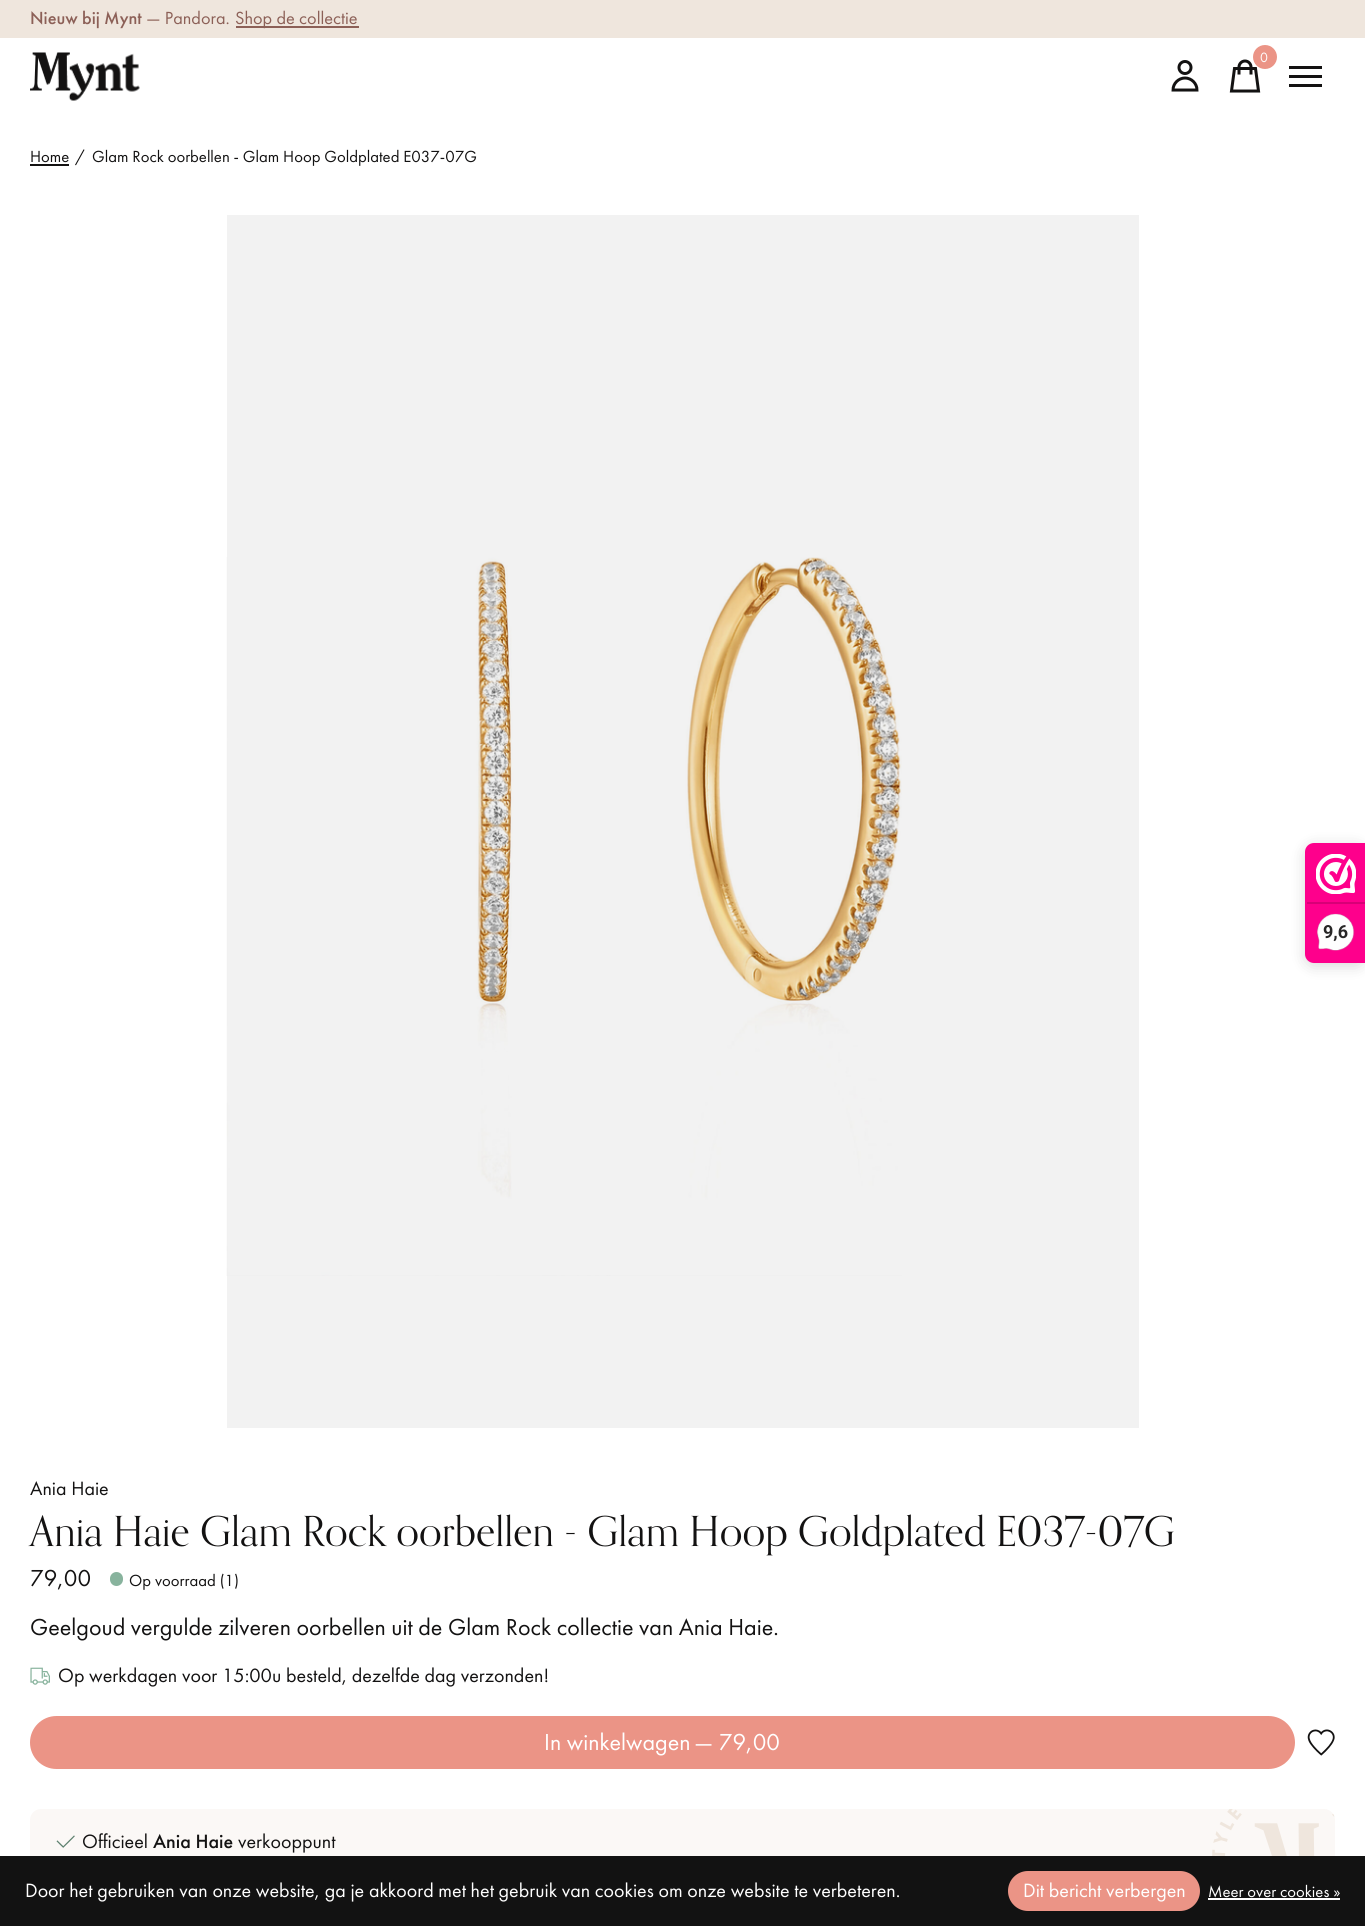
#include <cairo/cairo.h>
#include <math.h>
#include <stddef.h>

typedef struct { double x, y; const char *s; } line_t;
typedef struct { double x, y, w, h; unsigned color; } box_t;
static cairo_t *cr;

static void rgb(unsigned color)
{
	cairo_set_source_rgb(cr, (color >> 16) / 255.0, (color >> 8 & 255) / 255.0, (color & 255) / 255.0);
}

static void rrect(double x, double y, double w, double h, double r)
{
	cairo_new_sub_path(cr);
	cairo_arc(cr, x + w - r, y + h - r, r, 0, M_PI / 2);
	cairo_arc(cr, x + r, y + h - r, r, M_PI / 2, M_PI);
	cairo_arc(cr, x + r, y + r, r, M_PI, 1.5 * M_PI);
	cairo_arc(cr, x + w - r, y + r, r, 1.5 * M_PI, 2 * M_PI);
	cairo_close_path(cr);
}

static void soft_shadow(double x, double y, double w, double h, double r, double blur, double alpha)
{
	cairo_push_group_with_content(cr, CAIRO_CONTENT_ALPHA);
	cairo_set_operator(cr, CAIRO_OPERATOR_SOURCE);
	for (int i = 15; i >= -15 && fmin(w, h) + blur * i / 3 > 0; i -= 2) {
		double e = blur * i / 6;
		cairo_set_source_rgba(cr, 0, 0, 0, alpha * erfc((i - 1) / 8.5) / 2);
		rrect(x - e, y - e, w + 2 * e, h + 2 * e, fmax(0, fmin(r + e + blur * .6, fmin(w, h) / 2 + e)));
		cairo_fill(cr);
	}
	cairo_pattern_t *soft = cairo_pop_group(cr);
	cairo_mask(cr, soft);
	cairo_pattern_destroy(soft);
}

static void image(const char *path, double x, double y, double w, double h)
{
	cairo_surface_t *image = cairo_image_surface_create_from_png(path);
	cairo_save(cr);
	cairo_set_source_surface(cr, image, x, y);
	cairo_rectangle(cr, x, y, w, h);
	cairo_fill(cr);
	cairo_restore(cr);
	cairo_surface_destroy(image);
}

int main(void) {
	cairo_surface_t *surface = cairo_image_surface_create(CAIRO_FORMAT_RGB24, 1365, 1926);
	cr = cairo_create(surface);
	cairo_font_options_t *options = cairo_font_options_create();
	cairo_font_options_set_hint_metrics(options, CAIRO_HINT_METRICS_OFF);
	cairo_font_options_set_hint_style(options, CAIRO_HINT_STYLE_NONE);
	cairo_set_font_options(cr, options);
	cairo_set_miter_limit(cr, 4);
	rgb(0xffffff);
	cairo_paint(cr);
	rgb(0xefe6dd);
	cairo_rectangle(cr, 0, 0, 1365, 38);
	cairo_fill(cr);
	rgb(0x8c6057);
	cairo_rectangle(cr, 236, 26, 123, 2);
	cairo_fill(cr);
	image("img/1.png", 30, 52, 110, 49);
	cairo_new_path(cr);
	cairo_move_to(cr, 1258.5, 91);
	cairo_line_to(cr, 1231.5, 91);
	cairo_line_to(cr, 1234.5, 68.5);
	cairo_line_to(cr, 1255.5, 68.5);
	cairo_close_path(cr);
	cairo_move_to(cr, 1239, 73);
	cairo_line_to(cr, 1239, 67);
	cairo_curve_to(cr, 1239, 64, 1241.5, 61, 1245, 61);
	cairo_curve_to(cr, 1248.5, 61, 1251, 64, 1251, 67);
	cairo_line_to(cr, 1251, 73);
	rgb(0x131212);
	cairo_set_line_width(cr, 3);
	cairo_set_line_cap(cr, CAIRO_LINE_CAP_SQUARE);
	cairo_stroke(cr);
	rgb(0xeb9486);
	cairo_arc(cr, 1265, 57, 12, 0, 2 * M_PI);
	cairo_fill(cr);
	cairo_arc(cr, 1185, 67.5, 6, 0, 2 * M_PI);
	rgb(0x131212);
	cairo_set_line_cap(cr, CAIRO_LINE_CAP_BUTT);
	cairo_stroke(cr);
	cairo_new_path(cr);
	cairo_move_to(cr, 1185, 78);
	cairo_curve_to(cr, 1178.5, 78, 1173, 83.5, 1173, 90);
	cairo_line_to(cr, 1197, 90);
	cairo_curve_to(cr, 1197, 83.5, 1191.5, 78, 1185, 78);
	cairo_close_path(cr);
	cairo_set_line_cap(cr, CAIRO_LINE_CAP_SQUARE);
	cairo_stroke(cr);
	{
		static const box_t items[] = {
			{1289, 66, 33, 3, 0x131212},
			{1289, 75, 33, 3, 0x131212},
			{1289, 84, 33, 3, 0x131212},
			{30, 164, 39, 2, 0x131212},
			{227, 215, 912, 1213, 0xf2f2f2},
		};
		for (size_t i = 0; i < sizeof items / sizeof *items; i++) {
			rgb(items[i].color);
			cairo_rectangle(cr, items[i].x, items[i].y, items[i].w, items[i].h);
			cairo_fill(cr);
		}
	}
	image("img/2.png", 226, 557, 676, 719);
	rgb(0x88b39d);
	rrect(110, 1572, 13, 14, 6.5);
	cairo_fill(cr);
	image("img/3.png", 30, 1667, 20, 18);
	rgb(0xeb9486);
	rrect(30, 1716, 1265, 53, 26.5);
	cairo_fill(cr);
	image("img/4.png", 1307, 1729, 28, 27);
	rgb(0xfbf8f6);
	rrect(30, 1809, 1305, 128, 11);
	cairo_fill(cr);
	image("img/5.png", 1212, 1809, 123, 47);
	image("img/6.png", 56, 1835, 19, 13);
	rgb(0x000000);
	soft_shadow(1305, 846, 60, 120, 9, 7.5, 0.15);
	rgb(0xfe008c);
	cairo_new_path(cr);
	cairo_move_to(cr, 1314, 843);
	cairo_line_to(cr, 1365, 843);
	cairo_line_to(cr, 1365, 963);
	cairo_line_to(cr, 1314, 963);
	cairo_curve_to(cr, 1309, 963, 1305, 959, 1305, 954);
	cairo_line_to(cr, 1305, 852);
	cairo_curve_to(cr, 1305, 847, 1309, 843, 1314, 843);
	cairo_close_path(cr);
	cairo_fill(cr);
	image("img/7.png", 1316, 854, 40, 40);
	rgb(0xd80077);
	cairo_rectangle(cr, 1307, 902, 58, 2);
	cairo_fill(cr);
	image("img/8.png", 1317, 913, 38, 38);
	rgb(0x121212);
	cairo_rectangle(cr, 0, 1856, 1365, 70);
	cairo_fill(cr);
	rgb(0xeb9486);
	rrect(1008, 1871, 192, 40, 20);
	cairo_fill(cr);
	rgb(0xffffff);
	cairo_rectangle(cr, 1208, 1898, 132, 2);
	cairo_fill(cr);
	cairo_select_font_face(cr, "Futura PT Medium", CAIRO_FONT_SLANT_NORMAL, CAIRO_FONT_WEIGHT_NORMAL);
	cairo_set_font_size(cr, 18.25);
	rgb(0x8c6057);
	cairo_move_to(cr, 30, 24);
	cairo_show_text(cr, "Nieuw bij Mynt");
	cairo_select_font_face(cr, "Futura PT", CAIRO_FONT_SLANT_NORMAL, CAIRO_FONT_WEIGHT_NORMAL);
	cairo_move_to(cr, 146, 24);
	cairo_show_text(cr, "— Pandora.");
	cairo_move_to(cr, 235, 24);
	cairo_show_text(cr, "Shop de collectie");
	cairo_set_font_size(cr, 14);
	rgb(0xffffff);
	cairo_move_to(cr, 1260, 62);
	cairo_show_text(cr, "0");
	cairo_set_font_size(cr, 16.7);
	rgb(0x131212);
	{
		static const line_t items[] = {
			{30, 162, "Home"},
			{75, 162, "/"},
			{92, 162, "Glam Rock oorbellen - Glam Hoop Goldplated E037-07G"},
		};
		for (size_t i = 0; i < sizeof items / sizeof *items; i++) {
			cairo_move_to(cr, items[i].x, items[i].y);
			cairo_show_text(cr, items[i].s);
		}
	}
	cairo_set_font_size(cr, 20);
	cairo_move_to(cr, 30, 1495);
	cairo_show_text(cr, "Ania Haie");
	cairo_select_font_face(cr, "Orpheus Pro", CAIRO_FONT_SLANT_NORMAL, CAIRO_FONT_WEIGHT_NORMAL);
	cairo_set_font_size(cr, 41.5);
	cairo_move_to(cr, 30, 1546);
	cairo_show_text(cr, "Ania Haie Glam Rock oorbellen - Glam Hoop Goldplated E037-07G");
	cairo_select_font_face(cr, "Futura PT", CAIRO_FONT_SLANT_NORMAL, CAIRO_FONT_WEIGHT_NORMAL);
	cairo_set_font_size(cr, 24);
	cairo_move_to(cr, 30, 1586);
	cairo_show_text(cr, "79,00");
	cairo_set_font_size(cr, 16.7);
	cairo_move_to(cr, 129, 1586);
	cairo_show_text(cr, "Op voorraad (1)");
	cairo_set_font_size(cr, 24);
	cairo_move_to(cr, 30, 1635);
	cairo_show_text(cr, "Geelgoud vergulde zilveren oorbellen uit de Glam Rock collectie van Ania Haie.");
	cairo_set_font_size(cr, 20);
	cairo_move_to(cr, 58, 1682);
	cairo_show_text(cr, "Op werkdagen voor 15:00u besteld, dezelfde dag verzonden!");
	cairo_set_font_size(cr, 24);
	rgb(0xffffff);
	cairo_move_to(cr, 544, 1750);
	cairo_show_text(cr, "In winkelwagen");
	cairo_move_to(cr, 694, 1750);
	cairo_show_text(cr, "— 79,00");
	cairo_set_font_size(cr, 20);
	rgb(0x131212);
	cairo_move_to(cr, 82, 1848);
	cairo_show_text(cr, "Officieel");
	cairo_select_font_face(cr, "Futura PT Medium", CAIRO_FONT_SLANT_NORMAL, CAIRO_FONT_WEIGHT_NORMAL);
	cairo_move_to(cr, 153, 1848);
	cairo_show_text(cr, "Ania Haie");
	cairo_select_font_face(cr, "Futura PT", CAIRO_FONT_SLANT_NORMAL, CAIRO_FONT_WEIGHT_NORMAL);
	cairo_move_to(cr, 238, 1848);
	cairo_show_text(cr, "verkooppunt");
	cairo_select_font_face(cr, "Roboto", CAIRO_FONT_SLANT_NORMAL, CAIRO_FONT_WEIGHT_BOLD);
	cairo_set_font_size(cr, 18);
	rgb(0x272626);
	cairo_move_to(cr, 1323, 938);
	cairo_show_text(cr, "9,6");
	cairo_select_font_face(cr, "Futura PT", CAIRO_FONT_SLANT_NORMAL, CAIRO_FONT_WEIGHT_NORMAL);
	cairo_set_font_size(cr, 20);
	rgb(0xffffff);
	cairo_move_to(cr, 25, 1897);
	cairo_show_text(cr, "Door het gebruiken van onze website, ga je akkoord met het gebruik van cookies om onze website te verbeteren.");
	cairo_move_to(cr, 1023, 1897);
	cairo_show_text(cr, "Dit bericht verbergen");
	cairo_set_font_size(cr, 16.7);
	cairo_move_to(cr, 1208, 1897);
	cairo_show_text(cr, "Meer over cookies »");
	cairo_surface_write_to_png(surface, "page.png");
	cairo_font_options_destroy(options);
	cairo_destroy(cr);
	cairo_surface_destroy(surface);
	return 0;
}
